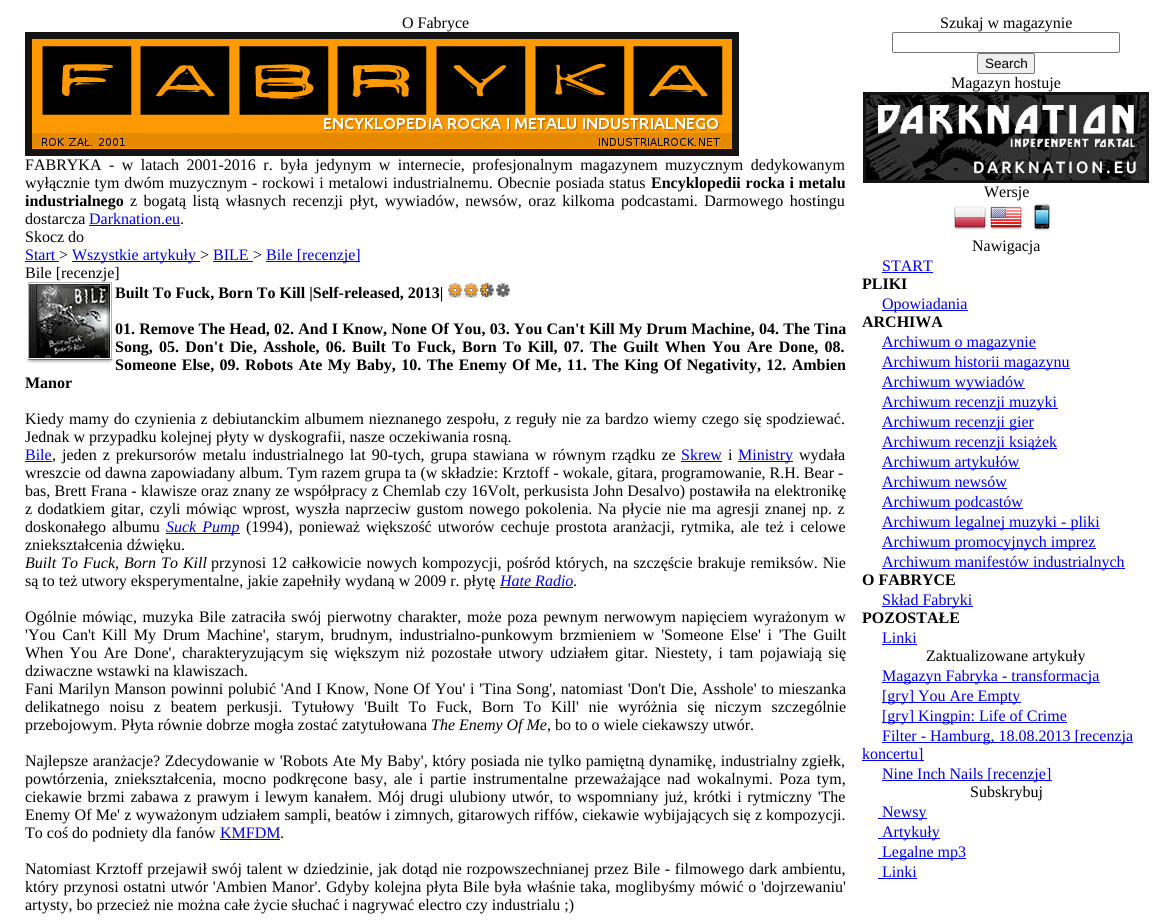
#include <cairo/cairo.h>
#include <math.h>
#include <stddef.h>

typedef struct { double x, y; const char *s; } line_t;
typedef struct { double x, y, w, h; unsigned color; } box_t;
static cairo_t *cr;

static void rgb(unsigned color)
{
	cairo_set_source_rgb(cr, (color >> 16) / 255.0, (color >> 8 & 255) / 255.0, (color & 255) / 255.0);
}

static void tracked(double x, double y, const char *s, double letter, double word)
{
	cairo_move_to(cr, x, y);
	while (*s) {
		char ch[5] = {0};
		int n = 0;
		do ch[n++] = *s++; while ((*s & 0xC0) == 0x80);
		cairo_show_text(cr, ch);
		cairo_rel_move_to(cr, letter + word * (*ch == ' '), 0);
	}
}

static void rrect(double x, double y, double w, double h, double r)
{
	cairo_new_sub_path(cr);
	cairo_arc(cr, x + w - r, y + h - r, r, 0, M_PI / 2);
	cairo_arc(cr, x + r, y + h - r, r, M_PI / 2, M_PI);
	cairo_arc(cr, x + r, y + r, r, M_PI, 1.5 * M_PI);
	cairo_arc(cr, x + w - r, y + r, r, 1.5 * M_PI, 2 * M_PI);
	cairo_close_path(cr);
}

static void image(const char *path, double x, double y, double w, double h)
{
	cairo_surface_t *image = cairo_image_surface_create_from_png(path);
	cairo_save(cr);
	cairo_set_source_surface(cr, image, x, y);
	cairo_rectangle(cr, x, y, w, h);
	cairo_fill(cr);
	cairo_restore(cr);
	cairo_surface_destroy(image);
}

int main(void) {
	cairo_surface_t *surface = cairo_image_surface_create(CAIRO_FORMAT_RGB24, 1175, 920);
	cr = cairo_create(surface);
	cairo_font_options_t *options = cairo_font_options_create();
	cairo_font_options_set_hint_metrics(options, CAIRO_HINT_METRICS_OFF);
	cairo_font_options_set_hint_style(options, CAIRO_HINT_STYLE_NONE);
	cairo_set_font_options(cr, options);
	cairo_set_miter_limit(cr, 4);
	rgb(0xffffff);
	cairo_paint(cr);
	cairo_rectangle(cr, 28.5, 35.5, 707, 117);
	rgb(0x141414);
	cairo_set_line_width(cr, 7);
	cairo_stroke(cr);
	image("img/1.png", 32, 39, 700, 110);
	{
		static const box_t items[] = {
			{89, 225, 91, 1, 0x0000ee},
			{25, 261, 34, 1, 0x0000ee},
			{72, 261, 128, 1, 0x0000ee},
			{213, 261, 40, 1, 0x0000ee},
			{266, 261, 94, 1, 0x0000ee},
		};
		for (size_t i = 0; i < sizeof items / sizeof *items; i++) {
			rgb(items[i].color);
			cairo_rectangle(cr, items[i].x, items[i].y, items[i].w, items[i].h);
			cairo_fill(cr);
		}
	}
	image("img/2.png", 25, 282, 90, 82);
	image("img/3.png", 448, 283, 62, 15);
	{
		static const box_t items[] = {
			{25, 461, 27, 1, 0x0000ee},
			{681, 461, 41, 1, 0x0000ee},
			{738, 461, 55, 1, 0x0000ee},
			{166, 533, 74, 1, 0x0000ee},
			{500, 587, 73, 1, 0x0000ee},
			{220, 839, 60, 1, 0x0000ee},
		};
		for (size_t i = 0; i < sizeof items / sizeof *items; i++) {
			rgb(items[i].color);
			cairo_rectangle(cr, items[i].x, items[i].y, items[i].w, items[i].h);
			cairo_fill(cr);
		}
	}
	rrect(892.5, 32.5, 227, 20, 1.5);
	rgb(0x767676);
	cairo_set_line_width(cr, 1);
	cairo_stroke(cr);
	rgb(0xefefef);
	rrect(977.5, 53.5, 57, 20, 1.5);
	cairo_fill_preserve(cr);
	rgb(0x767676);
	cairo_stroke(cr);
	cairo_rectangle(cr, 864.5, 93.5, 283, 88);
	rgb(0x141414);
	cairo_set_line_width(cr, 3);
	cairo_stroke(cr);
	image("img/4.png", 866, 95, 280, 85);
	image("img/5.png", 954, 206, 32, 24);
	image("img/6.png", 990, 206, 32, 24);
	image("img/7.png", 1033, 203, 18, 28);
	{
		static const box_t items[] = {
			{882, 272, 51, 1, 0x0000ee},
			{882, 310, 86, 1, 0x0000ee},
			{882, 348, 154, 1, 0x0000ee},
			{882, 368, 188, 1, 0x0000ee},
			{882, 388, 143, 1, 0x0000ee},
			{882, 408, 176, 1, 0x0000ee},
			{882, 428, 152, 1, 0x0000ee},
			{882, 448, 175, 1, 0x0000ee},
			{882, 468, 138, 1, 0x0000ee},
			{882, 488, 125, 1, 0x0000ee},
			{882, 508, 141, 1, 0x0000ee},
			{882, 528, 218, 1, 0x0000ee},
			{882, 548, 214, 1, 0x0000ee},
			{882, 568, 243, 1, 0x0000ee},
			{882, 606, 91, 1, 0x0000ee},
			{882, 644, 35, 1, 0x0000ee},
			{882, 682, 218, 1, 0x0000ee},
			{882, 702, 139, 1, 0x0000ee},
			{882, 722, 185, 1, 0x0000ee},
			{882, 742, 251, 1, 0x0000ee},
			{862, 760, 62, 1, 0x0000ee},
			{882, 780, 170, 1, 0x0000ee},
			{878, 818, 49, 1, 0x0000ee},
			{878, 838, 62, 1, 0x0000ee},
			{878, 858, 88, 1, 0x0000ee},
			{878, 878, 39, 1, 0x0000ee},
		};
		for (size_t i = 0; i < sizeof items / sizeof *items; i++) {
			rgb(items[i].color);
			cairo_rectangle(cr, items[i].x, items[i].y, items[i].w, items[i].h);
			cairo_fill(cr);
		}
	}
	cairo_select_font_face(cr, "Liberation Serif", CAIRO_FONT_SLANT_NORMAL, CAIRO_FONT_WEIGHT_NORMAL);
	cairo_set_font_size(cr, 16);
	rgb(0x000000);
	cairo_move_to(cr, 402, 28);
	cairo_show_text(cr, "O Fabryce");
	tracked(25, 170, "FABRYKA - w latach 2001-2016 r. była jedynym w internecie, profesjonalnym magazynem muzycznym dedykowanym", 0, 3.5);
	tracked(25, 188, "wyłącznie tym dwóm muzycznym - rockowi i metalowi industrialnemu. Obecnie posiada status", 0, 0.75);
	cairo_select_font_face(cr, "Liberation Serif", CAIRO_FONT_SLANT_NORMAL, CAIRO_FONT_WEIGHT_BOLD);
	tracked(651, 188, "Encyklopedii rocka i metalu", 0, 0.75);
	cairo_move_to(cr, 25, 206);
	cairo_show_text(cr, "industrialnego");
	cairo_select_font_face(cr, "Liberation Serif", CAIRO_FONT_SLANT_NORMAL, CAIRO_FONT_WEIGHT_NORMAL);
	tracked(130, 206, "z bogatą listą własnych recenzji płyt, wywiadów, newsów, oraz kilkoma podcastami. Darmowego hostingu", 0, 2.4);
	cairo_move_to(cr, 25, 224);
	cairo_show_text(cr, "dostarcza");
	rgb(0x0000ee);
	cairo_move_to(cr, 89, 224);
	cairo_show_text(cr, "Darknation.eu");
	rgb(0x000000);
	cairo_move_to(cr, 180, 224);
	cairo_show_text(cr, ".");
	cairo_move_to(cr, 25, 242);
	cairo_show_text(cr, "Skocz do");
	rgb(0x0000ee);
	cairo_move_to(cr, 25, 260);
	cairo_show_text(cr, "Start");
	rgb(0x000000);
	cairo_move_to(cr, 59, 260);
	cairo_show_text(cr, ">");
	rgb(0x0000ee);
	cairo_move_to(cr, 72, 260);
	cairo_show_text(cr, "Wszystkie artykuły");
	rgb(0x000000);
	cairo_move_to(cr, 200, 260);
	cairo_show_text(cr, ">");
	rgb(0x0000ee);
	cairo_move_to(cr, 213, 260);
	cairo_show_text(cr, "BILE");
	rgb(0x000000);
	cairo_move_to(cr, 253, 260);
	cairo_show_text(cr, ">");
	rgb(0x0000ee);
	cairo_move_to(cr, 266, 260);
	cairo_show_text(cr, "Bile [recenzje]");
	rgb(0x000000);
	cairo_move_to(cr, 25, 278);
	cairo_show_text(cr, "Bile [recenzje]");
	cairo_select_font_face(cr, "Liberation Serif", CAIRO_FONT_SLANT_NORMAL, CAIRO_FONT_WEIGHT_BOLD);
	cairo_move_to(cr, 115, 298);
	cairo_show_text(cr, "Built To Fuck, Born To Kill |Self-released, 2013|");
	tracked(115, 334, "01. Remove The Head, 02. And I Know, None Of You, 03. You Can't Kill My Drum Machine, 04. The Tina", 0, 0.2);
	tracked(115, 352, "Song, 05. Don't Die, Asshole, 06. Built To Fuck, Born To Kill, 07. The Guilt When You Are Done, 08.", 0, 2.25);
	tracked(115, 370, "Someone Else, 09. Robots Ate My Baby, 10. The Enemy Of Me, 11. The King Of Negativity, 12. Ambien", 0, 1.4);
	cairo_move_to(cr, 25, 388);
	cairo_show_text(cr, "Manor");
	cairo_select_font_face(cr, "Liberation Serif", CAIRO_FONT_SLANT_NORMAL, CAIRO_FONT_WEIGHT_NORMAL);
	tracked(25, 424, "Kiedy mamy do czynienia z debiutanckim albumem nieznanego zespołu, z reguły nie za bardzo wiemy czego się spodziewać.", 0, 0.8);
	cairo_move_to(cr, 25, 442);
	cairo_show_text(cr, "Jednak w przypadku kolejnej płyty w dyskografii, nasze oczekiwania rosną.");
	rgb(0x0000ee);
	cairo_move_to(cr, 25, 460);
	cairo_show_text(cr, "Bile");
	rgb(0x000000);
	tracked(52, 460, ", jeden z prekursorów metalu industrialnego lat 90-tych, grupa stawiana w równym rządku ze", 0, 2);
	rgb(0x0000ee);
	cairo_move_to(cr, 681, 460);
	cairo_show_text(cr, "Skrew");
	rgb(0x000000);
	cairo_move_to(cr, 728, 460);
	cairo_show_text(cr, "i");
	rgb(0x0000ee);
	cairo_move_to(cr, 738, 460);
	cairo_show_text(cr, "Ministry");
	rgb(0x000000);
	cairo_move_to(cr, 799, 460);
	cairo_show_text(cr, "wydała");
	cairo_move_to(cr, 25, 478);
	cairo_show_text(cr, "wreszcie od dawna zapowiadany album. Tym razem grupa ta (w składzie: Krztoff - wokale, gitara, programowanie, R.H. Bear -");
	tracked(25, 496, "bas, Brett Frana - klawisze oraz znany ze współpracy z Chemlab czy 16Volt, perkusista John Desalvo) postawiła na elektronikę", 0, 0.2);
	tracked(25, 514, "z dodatkiem gitar, czyli mówiąc wprost, wyszła naprzeciw gustom nowego pokolenia. Na płycie nie ma agresji znanej np. z", 0, 1.5);
	tracked(25, 532, "doskonałego albumu", 0, 2);
	cairo_select_font_face(cr, "Liberation Serif", CAIRO_FONT_SLANT_ITALIC, CAIRO_FONT_WEIGHT_NORMAL);
	rgb(0x0000ee);
	tracked(166, 532, "Suck Pump", 0, 2);
	cairo_select_font_face(cr, "Liberation Serif", CAIRO_FONT_SLANT_NORMAL, CAIRO_FONT_WEIGHT_NORMAL);
	rgb(0x000000);
	tracked(246, 532, "(1994), ponieważ większość utworów cechuje prostota aranżacji, rytmika, ale też i celowe", 0, 2);
	cairo_move_to(cr, 25, 550);
	cairo_show_text(cr, "zniekształcenia dźwięku.");
	cairo_select_font_face(cr, "Liberation Serif", CAIRO_FONT_SLANT_ITALIC, CAIRO_FONT_WEIGHT_NORMAL);
	tracked(25, 568, "Built To Fuck, Born To Kill", 0, 1);
	cairo_select_font_face(cr, "Liberation Serif", CAIRO_FONT_SLANT_NORMAL, CAIRO_FONT_WEIGHT_NORMAL);
	tracked(211, 568, "przynosi 12 całkowicie nowych kompozycji, pośród których, na szczęście brakuje remiksów. Nie", 0, 1);
	cairo_move_to(cr, 25, 586);
	cairo_show_text(cr, "są to też utwory eksperymentalne, jakie zapełniły wydaną w 2009 r. płytę");
	cairo_select_font_face(cr, "Liberation Serif", CAIRO_FONT_SLANT_ITALIC, CAIRO_FONT_WEIGHT_NORMAL);
	rgb(0x0000ee);
	cairo_move_to(cr, 500, 586);
	cairo_show_text(cr, "Hate Radio");
	cairo_select_font_face(cr, "Liberation Serif", CAIRO_FONT_SLANT_NORMAL, CAIRO_FONT_WEIGHT_NORMAL);
	rgb(0x000000);
	cairo_move_to(cr, 573, 586);
	cairo_show_text(cr, ".");
	tracked(25, 622, "Ogólnie mówiąc, muzyka Bile zatraciła swój pierwotny charakter, może poza pewnym nerwowym napięciem wyrażonym w", 0, 1.7);
	tracked(25, 640, "'You Can't Kill My Drum Machine', starym, brudnym, industrialno-punkowym brzmieniem w 'Someone Else' i 'The Guilt", 0, 2.75);
	tracked(25, 658, "When You Are Done', charakteryzującym się większym niż pozostałe utwory udziałem gitar. Niestety, i tam pojawiają się", 0, 2.4);
	cairo_move_to(cr, 25, 676);
	cairo_show_text(cr, "dziwaczne wstawki na klawiszach.");
	tracked(25, 694, "Fani Marilyn Manson powinni polubić 'And I Know, None Of You' i 'Tina Song', natomiast 'Don't Die, Asshole' to mieszanka", 0, 0.75);
	tracked(25, 712, "delikatnego noisu z beatem perkusji. Tytułowy 'Built To Fuck, Born To Kill' nie wyróżnia się niczym szczególnie", 0, 5.75);
	cairo_move_to(cr, 25, 730);
	cairo_show_text(cr, "przebojowym. Płyta równie dobrze mogła zostać zatytułowana");
	cairo_select_font_face(cr, "Liberation Serif", CAIRO_FONT_SLANT_ITALIC, CAIRO_FONT_WEIGHT_NORMAL);
	cairo_move_to(cr, 431, 730);
	cairo_show_text(cr, "The Enemy Of Me");
	cairo_select_font_face(cr, "Liberation Serif", CAIRO_FONT_SLANT_NORMAL, CAIRO_FONT_WEIGHT_NORMAL);
	cairo_move_to(cr, 547, 730);
	cairo_show_text(cr, ", bo to o wiele ciekawszy utwór.");
	tracked(25, 766, "Najlepsze aranżacje? Zdecydowanie w 'Robots Ate My Baby', który posiada nie tylko pamiętną dynamikę, industrialny zgiełk,", 0, 0.6);
	tracked(25, 784, "powtórzenia, zniekształcenia, mocno podkręcone basy, ale i partie instrumentalne przeważające nad wokalnymi. Poza tym,", 0, 2.5);
	tracked(25, 802, "ciekawie brzmi zabawa z prawym i lewym kanałem. Mój drugi ulubiony utwór, to wspomniany już, krótki i rytmiczny 'The", 0, 1.6);
	tracked(25, 820, "Enemy Of Me' z wyważonym udziałem sampli, beatów i zimnych, gitarowych riffów, ciekawie wybijających się z", 0, 0.25);
	cairo_move_to(cr, 766, 820);
	cairo_show_text(cr, "kompozycji.");
	cairo_move_to(cr, 25, 838);
	cairo_show_text(cr, "To coś do podniety dla fanów");
	rgb(0x0000ee);
	cairo_move_to(cr, 220, 838);
	cairo_show_text(cr, "KMFDM");
	rgb(0x000000);
	cairo_move_to(cr, 280, 838);
	cairo_show_text(cr, ".");
	tracked(25, 874, "Natomiast Krztoff przejawił swój talent w dziedzinie, jak dotąd nie rozpowszechnianej przez Bile - filmowego dark ambientu,", 0, 0.75);
	tracked(25, 892, "który przynosi ostatni utwór 'Ambien Manor'. Gdyby kolejna płyta Bile była właśnie taka, moglibyśmy mówić o 'dojrzewaniu'", 0, 0.7);
	cairo_move_to(cr, 25, 910);
	cairo_show_text(cr, "artysty, bo przecież nie można całe życie słuchać i nagrywać electro czy industrialu ;)");
	cairo_move_to(cr, 940, 28);
	cairo_show_text(cr, "Szukaj w magazynie");
	cairo_select_font_face(cr, "Liberation Sans", CAIRO_FONT_SLANT_NORMAL, CAIRO_FONT_WEIGHT_NORMAL);
	cairo_set_font_size(cr, 13.5);
	cairo_move_to(cr, 985, 68);
	cairo_show_text(cr, "Search");
	cairo_select_font_face(cr, "Liberation Serif", CAIRO_FONT_SLANT_NORMAL, CAIRO_FONT_WEIGHT_NORMAL);
	cairo_set_font_size(cr, 16);
	{
		static const line_t items[] = {
			{951, 88, "Magazyn hostuje"},
			{984, 197, "Wersje"},
			{972, 251, "Nawigacja"},
		};
		for (size_t i = 0; i < sizeof items / sizeof *items; i++) {
			cairo_move_to(cr, items[i].x, items[i].y);
			cairo_show_text(cr, items[i].s);
		}
	}
	rgb(0x0000ee);
	cairo_move_to(cr, 882, 271);
	cairo_show_text(cr, "START");
	cairo_select_font_face(cr, "Liberation Serif", CAIRO_FONT_SLANT_NORMAL, CAIRO_FONT_WEIGHT_BOLD);
	rgb(0x000000);
	cairo_move_to(cr, 862, 289);
	cairo_show_text(cr, "PLIKI");
	cairo_select_font_face(cr, "Liberation Serif", CAIRO_FONT_SLANT_NORMAL, CAIRO_FONT_WEIGHT_NORMAL);
	rgb(0x0000ee);
	cairo_move_to(cr, 882, 309);
	cairo_show_text(cr, "Opowiadania");
	cairo_select_font_face(cr, "Liberation Serif", CAIRO_FONT_SLANT_NORMAL, CAIRO_FONT_WEIGHT_BOLD);
	rgb(0x000000);
	cairo_move_to(cr, 862, 327);
	cairo_show_text(cr, "ARCHIWA");
	cairo_select_font_face(cr, "Liberation Serif", CAIRO_FONT_SLANT_NORMAL, CAIRO_FONT_WEIGHT_NORMAL);
	rgb(0x0000ee);
	{
		static const line_t items[] = {
			{882, 347, "Archiwum o magazynie"},
			{882, 367, "Archiwum historii magazynu"},
			{882, 387, "Archiwum wywiadów"},
			{882, 407, "Archiwum recenzji muzyki"},
			{882, 427, "Archiwum recenzji gier"},
			{882, 447, "Archiwum recenzji książek"},
			{882, 467, "Archiwum artykułów"},
			{882, 487, "Archiwum newsów"},
			{882, 507, "Archiwum podcastów"},
			{882, 527, "Archiwum legalnej muzyki - pliki"},
			{882, 547, "Archiwum promocyjnych imprez"},
			{882, 567, "Archiwum manifestów industrialnych"},
		};
		for (size_t i = 0; i < sizeof items / sizeof *items; i++) {
			cairo_move_to(cr, items[i].x, items[i].y);
			cairo_show_text(cr, items[i].s);
		}
	}
	cairo_select_font_face(cr, "Liberation Serif", CAIRO_FONT_SLANT_NORMAL, CAIRO_FONT_WEIGHT_BOLD);
	rgb(0x000000);
	cairo_move_to(cr, 862, 585);
	cairo_show_text(cr, "O FABRYCE");
	cairo_select_font_face(cr, "Liberation Serif", CAIRO_FONT_SLANT_NORMAL, CAIRO_FONT_WEIGHT_NORMAL);
	rgb(0x0000ee);
	cairo_move_to(cr, 882, 605);
	cairo_show_text(cr, "Skład Fabryki");
	cairo_select_font_face(cr, "Liberation Serif", CAIRO_FONT_SLANT_NORMAL, CAIRO_FONT_WEIGHT_BOLD);
	rgb(0x000000);
	cairo_move_to(cr, 862, 623);
	cairo_show_text(cr, "POZOSTAŁE");
	cairo_select_font_face(cr, "Liberation Serif", CAIRO_FONT_SLANT_NORMAL, CAIRO_FONT_WEIGHT_NORMAL);
	rgb(0x0000ee);
	cairo_move_to(cr, 882, 643);
	cairo_show_text(cr, "Linki");
	rgb(0x000000);
	cairo_move_to(cr, 926, 661);
	cairo_show_text(cr, "Zaktualizowane artykuły");
	rgb(0x0000ee);
	{
		static const line_t items[] = {
			{882, 681, "Magazyn Fabryka - transformacja"},
			{882, 701, "[gry] You Are Empty"},
			{882, 721, "[gry] Kingpin: Life of Crime"},
			{882, 741, "Filter - Hamburg, 18.08.2013 [recenzja"},
			{862, 759, "koncertu]"},
			{882, 779, "Nine Inch Nails [recenzje]"},
		};
		for (size_t i = 0; i < sizeof items / sizeof *items; i++) {
			cairo_move_to(cr, items[i].x, items[i].y);
			cairo_show_text(cr, items[i].s);
		}
	}
	rgb(0x000000);
	cairo_move_to(cr, 970, 797);
	cairo_show_text(cr, "Subskrybuj");
	rgb(0x0000ee);
	{
		static const line_t items[] = {
			{882, 817, "Newsy"},
			{882, 837, "Artykuły"},
			{882, 857, "Legalne mp3"},
			{882, 877, "Linki"},
		};
		for (size_t i = 0; i < sizeof items / sizeof *items; i++) {
			cairo_move_to(cr, items[i].x, items[i].y);
			cairo_show_text(cr, items[i].s);
		}
	}
	cairo_surface_write_to_png(surface, "page.png");
	cairo_font_options_destroy(options);
	cairo_destroy(cr);
	cairo_surface_destroy(surface);
	return 0;
}
